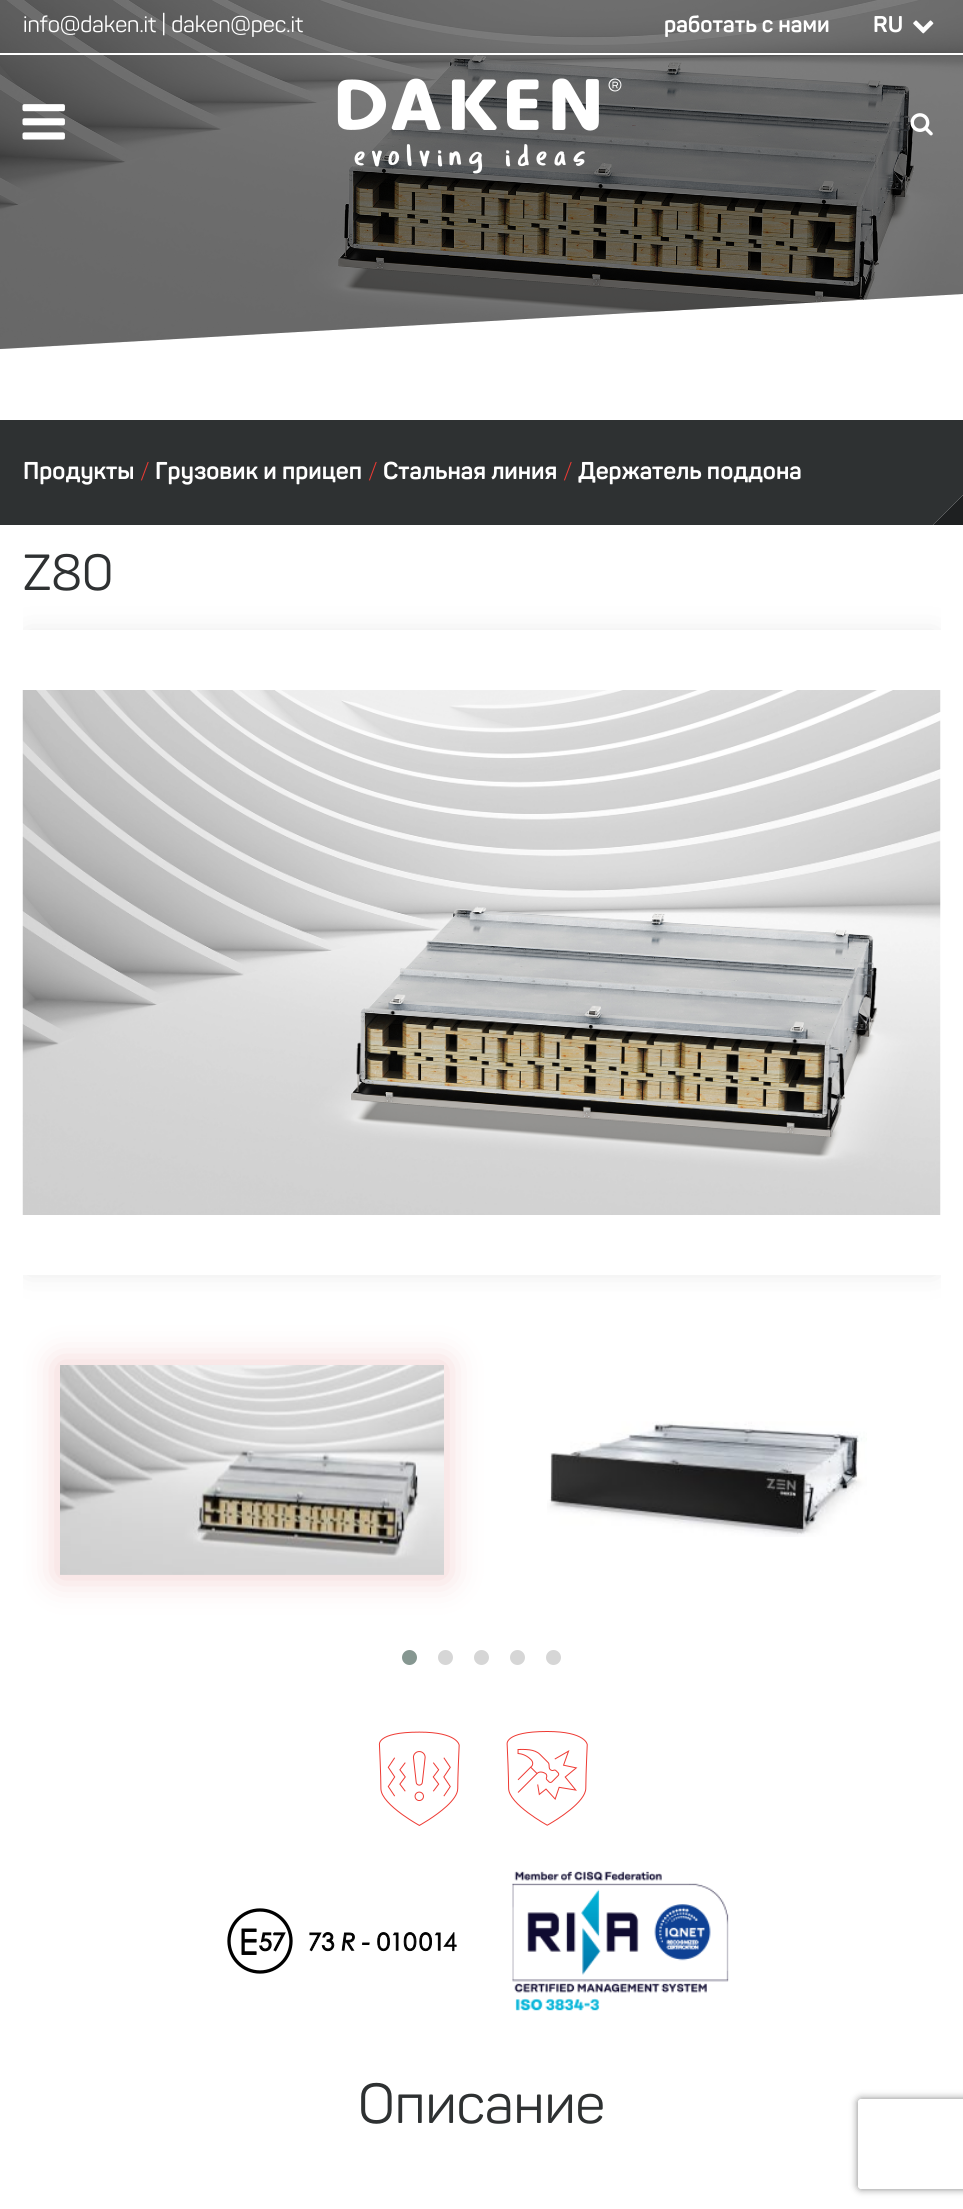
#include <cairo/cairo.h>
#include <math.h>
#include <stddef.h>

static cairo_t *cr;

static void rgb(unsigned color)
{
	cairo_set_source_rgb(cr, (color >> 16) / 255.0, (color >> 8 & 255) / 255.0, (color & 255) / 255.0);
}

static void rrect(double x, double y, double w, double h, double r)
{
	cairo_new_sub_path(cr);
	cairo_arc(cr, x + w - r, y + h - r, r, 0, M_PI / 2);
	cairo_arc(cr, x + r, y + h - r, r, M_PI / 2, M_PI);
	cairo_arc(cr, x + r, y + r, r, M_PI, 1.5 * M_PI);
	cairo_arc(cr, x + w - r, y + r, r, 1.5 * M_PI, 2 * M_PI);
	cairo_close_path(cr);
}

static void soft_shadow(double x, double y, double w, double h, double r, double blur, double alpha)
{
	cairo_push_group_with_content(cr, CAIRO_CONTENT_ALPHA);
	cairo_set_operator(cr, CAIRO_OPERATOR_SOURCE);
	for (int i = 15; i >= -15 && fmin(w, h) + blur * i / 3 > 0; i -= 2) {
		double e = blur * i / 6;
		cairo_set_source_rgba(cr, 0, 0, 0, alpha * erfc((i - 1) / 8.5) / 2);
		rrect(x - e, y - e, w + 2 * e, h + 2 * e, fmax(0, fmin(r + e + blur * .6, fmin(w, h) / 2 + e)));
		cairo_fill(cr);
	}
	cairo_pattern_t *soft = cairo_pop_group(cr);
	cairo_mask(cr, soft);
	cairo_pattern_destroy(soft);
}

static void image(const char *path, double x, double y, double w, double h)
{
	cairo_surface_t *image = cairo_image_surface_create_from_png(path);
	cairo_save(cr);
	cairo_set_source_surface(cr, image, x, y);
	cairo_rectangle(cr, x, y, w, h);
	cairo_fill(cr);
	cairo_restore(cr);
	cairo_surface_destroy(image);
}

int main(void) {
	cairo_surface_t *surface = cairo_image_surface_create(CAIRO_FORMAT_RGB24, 963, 2209);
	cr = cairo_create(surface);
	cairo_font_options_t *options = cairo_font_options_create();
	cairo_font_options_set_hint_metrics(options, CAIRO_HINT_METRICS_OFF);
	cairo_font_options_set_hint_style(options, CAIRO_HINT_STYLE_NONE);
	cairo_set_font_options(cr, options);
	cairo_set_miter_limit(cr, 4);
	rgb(0xffffff);
	cairo_paint(cr);
	image("img/1.png", 0, 0, 963, 350);
	cairo_set_source_rgba(cr, 0, 0, 0, 0.5);
	cairo_new_path(cr);
	cairo_move_to(cr, 0, 0);
	cairo_line_to(cr, 0, 349);
	cairo_line_to(cr, 963, 294);
	cairo_line_to(cr, 963, 0);
	cairo_close_path(cr);
	cairo_fill(cr);
	rgb(0xffffff);
	cairo_rectangle(cr, 0, 53, 963, 2);
	cairo_fill(cr);
	image("img/2.png", 913, 20, 21, 14);
	image("img/3.png", 22, 104, 43, 36);
	image("img/4.png", 337, 78, 285, 96);
	image("img/5.png", 632, 125, 4, 1);
	image("img/6.png", 910, 113, 23, 23);
	cairo_save(cr);
	cairo_rectangle(cr, 0, 420, 963, 105);
	cairo_clip(cr);
	rgb(0x2e3132);
	cairo_new_path(cr);
	cairo_move_to(cr, -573, 613);
	cairo_line_to(cr, -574, 341);
	cairo_curve_to(cr, -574, 337, -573, 336, -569, 336);
	cairo_line_to(cr, 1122, 336);
	cairo_curve_to(cr, 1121, 341, 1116, 342, 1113, 345);
	cairo_line_to(cr, 945, 513);
	cairo_line_to(cr, 875, 582);
	cairo_line_to(cr, 847, 611);
	cairo_line_to(cr, 846, 613);
	cairo_close_path(cr);
	cairo_fill(cr);
	rgb(0x1e2021);
	cairo_new_path(cr);
	cairo_move_to(cr, 846, 613);
	cairo_line_to(cr, 847, 611);
	cairo_line_to(cr, 875, 582);
	cairo_line_to(cr, 945, 513);
	cairo_line_to(cr, 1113, 345);
	cairo_curve_to(cr, 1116, 342, 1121, 341, 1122, 336);
	cairo_line_to(cr, 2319, 336);
	cairo_line_to(cr, 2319, 607);
	cairo_curve_to(cr, 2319, 613, 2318, 613, 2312, 613);
	cairo_close_path(cr);
	cairo_fill(cr);
	cairo_restore(cr);
	cairo_save(cr);
	cairo_rectangle(cr, 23, 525, 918, 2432);
	cairo_clip(cr);
	cairo_set_fill_rule(cr, CAIRO_FILL_RULE_EVEN_ODD);
	cairo_new_path(cr);
	cairo_move_to(cr, 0, 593);
	cairo_line_to(cr, 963, 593);
	cairo_line_to(cr, 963, 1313);
	cairo_line_to(cr, 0, 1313);
	cairo_close_path(cr);
	cairo_move_to(cr, 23, 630);
	cairo_line_to(cr, 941, 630);
	cairo_line_to(cr, 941, 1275);
	cairo_line_to(cr, 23, 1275);
	cairo_close_path(cr);
	cairo_clip(cr);
	rgb(0xe3e3e3);
	soft_shadow(27, 635, 909, 636, 0, 13.5, 1);
	cairo_restore(cr);
	image("img/7.png", 22, 690, 919, 525);
	cairo_save(cr);
	cairo_rectangle(cr, 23, 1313, 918, 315);
	cairo_clip(cr);
	rgb(0xf4d2d2);
	soft_shadow(57, 1362, 390, 216, 0, 17, 1);
	cairo_restore(cr);
	image("img/8.png", 60, 1365, 384, 210);
	image("img/9.png", 547, 1421, 320, 116);
	rgb(0x869791);
	cairo_arc(cr, 409.5, 1657.5, 7.5, 0, 2 * M_PI);
	cairo_fill(cr);
	rgb(0xd6d6d6);
	cairo_arc(cr, 445.5, 1657.5, 7.5, 0, 2 * M_PI);
	cairo_fill(cr);
	cairo_arc(cr, 481.5, 1657.5, 7.5, 0, 2 * M_PI);
	cairo_fill(cr);
	cairo_arc(cr, 517.5, 1657.5, 7.5, 0, 2 * M_PI);
	cairo_fill(cr);
	cairo_arc(cr, 553.5, 1657.5, 7.5, 0, 2 * M_PI);
	cairo_fill(cr);
	image("img/10.png", 378, 1731, 82, 95);
	image("img/11.png", 506, 1731, 82, 95);
	image("img/12.png", 227, 1908, 230, 66);
	image("img/13.png", 512, 1871, 217, 140);
	cairo_save(cr);
	cairo_set_fill_rule(cr, CAIRO_FILL_RULE_EVEN_ODD);
	cairo_new_path(cr);
	cairo_move_to(cr, 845, 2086);
	cairo_line_to(cr, 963, 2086);
	cairo_line_to(cr, 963, 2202);
	cairo_line_to(cr, 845, 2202);
	cairo_close_path(cr);
	cairo_move_to(cr, 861, 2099);
	cairo_line_to(cr, 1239, 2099);
	cairo_curve_to(cr, 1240.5, 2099, 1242, 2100.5, 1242, 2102);
	cairo_line_to(cr, 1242, 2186);
	cairo_curve_to(cr, 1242, 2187.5, 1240.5, 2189, 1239, 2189);
	cairo_line_to(cr, 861, 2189);
	cairo_curve_to(cr, 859.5, 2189, 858, 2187.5, 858, 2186);
	cairo_line_to(cr, 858, 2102);
	cairo_curve_to(cr, 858, 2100.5, 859.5, 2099, 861, 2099);
	cairo_close_path(cr);
	cairo_clip(cr);
	rgb(0x808080);
	soft_shadow(858, 2099, 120, 90, 3, 4, 1);
	cairo_restore(cr);
	cairo_select_font_face(cr, "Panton", CAIRO_FONT_SLANT_NORMAL, CAIRO_FONT_WEIGHT_NORMAL);
	cairo_set_font_size(cr, 22.5);
	rgb(0xffffff);
	cairo_move_to(cr, 23, 32);
	cairo_show_text(cr, "info@daken.it | daken@pec.it");
	cairo_select_font_face(cr, "Panton", CAIRO_FONT_SLANT_NORMAL, CAIRO_FONT_WEIGHT_BOLD);
	cairo_move_to(cr, 664, 32);
	cairo_show_text(cr, "работать с нами");
	cairo_move_to(cr, 873, 32);
	cairo_show_text(cr, "RU");
	cairo_set_font_size(cr, 24);
	cairo_move_to(cr, 23, 479);
	cairo_show_text(cr, "Продукты");
	cairo_select_font_face(cr, "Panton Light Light", CAIRO_FONT_SLANT_NORMAL, CAIRO_FONT_WEIGHT_NORMAL);
	rgb(0xee3a33);
	cairo_move_to(cr, 140, 479);
	cairo_show_text(cr, "/");
	cairo_select_font_face(cr, "Panton", CAIRO_FONT_SLANT_NORMAL, CAIRO_FONT_WEIGHT_BOLD);
	rgb(0xffffff);
	cairo_move_to(cr, 155, 479);
	cairo_show_text(cr, "Грузовик и прицеп");
	cairo_select_font_face(cr, "Panton Light Light", CAIRO_FONT_SLANT_NORMAL, CAIRO_FONT_WEIGHT_NORMAL);
	rgb(0xee3a33);
	cairo_move_to(cr, 368, 479);
	cairo_show_text(cr, "/");
	cairo_select_font_face(cr, "Panton", CAIRO_FONT_SLANT_NORMAL, CAIRO_FONT_WEIGHT_BOLD);
	rgb(0xffffff);
	cairo_move_to(cr, 383, 479);
	cairo_show_text(cr, "Стальная линия");
	cairo_select_font_face(cr, "Panton Light Light", CAIRO_FONT_SLANT_NORMAL, CAIRO_FONT_WEIGHT_NORMAL);
	rgb(0xee3a33);
	cairo_move_to(cr, 563, 479);
	cairo_show_text(cr, "/");
	cairo_select_font_face(cr, "Panton", CAIRO_FONT_SLANT_NORMAL, CAIRO_FONT_WEIGHT_BOLD);
	rgb(0xffffff);
	cairo_move_to(cr, 578, 479);
	cairo_show_text(cr, "Держатель поддона");
	cairo_select_font_face(cr, "Panton", CAIRO_FONT_SLANT_NORMAL, CAIRO_FONT_WEIGHT_NORMAL);
	cairo_set_font_size(cr, 50);
	rgb(0x2e3132);
	cairo_move_to(cr, 23, 590);
	cairo_show_text(cr, "Z80");
	cairo_set_font_size(cr, 55.5);
	cairo_move_to(cr, 358, 2123);
	cairo_show_text(cr, "Описание");
	cairo_surface_write_to_png(surface, "page.png");
	cairo_font_options_destroy(options);
	cairo_destroy(cr);
	cairo_surface_destroy(surface);
	return 0;
}
